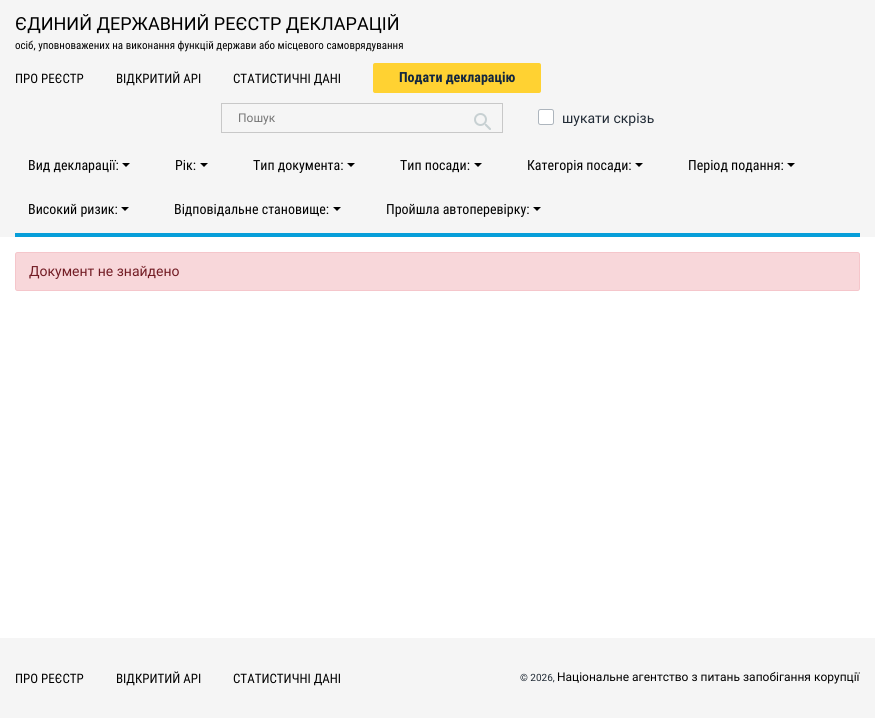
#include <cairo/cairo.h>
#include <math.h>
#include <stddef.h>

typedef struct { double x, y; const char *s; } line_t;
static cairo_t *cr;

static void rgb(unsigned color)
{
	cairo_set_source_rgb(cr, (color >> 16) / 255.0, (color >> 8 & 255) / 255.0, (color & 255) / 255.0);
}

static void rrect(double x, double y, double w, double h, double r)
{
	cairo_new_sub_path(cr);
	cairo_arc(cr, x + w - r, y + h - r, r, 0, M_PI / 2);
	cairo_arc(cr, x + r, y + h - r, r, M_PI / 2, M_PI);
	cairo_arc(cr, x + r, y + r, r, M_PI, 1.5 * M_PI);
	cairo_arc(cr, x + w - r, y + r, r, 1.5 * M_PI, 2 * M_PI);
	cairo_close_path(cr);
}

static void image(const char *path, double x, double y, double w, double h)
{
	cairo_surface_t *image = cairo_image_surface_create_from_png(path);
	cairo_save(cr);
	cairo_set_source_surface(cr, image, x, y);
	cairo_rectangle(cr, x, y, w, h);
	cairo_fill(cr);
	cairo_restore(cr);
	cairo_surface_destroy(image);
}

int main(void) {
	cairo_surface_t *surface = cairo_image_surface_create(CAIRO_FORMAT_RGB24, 875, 718);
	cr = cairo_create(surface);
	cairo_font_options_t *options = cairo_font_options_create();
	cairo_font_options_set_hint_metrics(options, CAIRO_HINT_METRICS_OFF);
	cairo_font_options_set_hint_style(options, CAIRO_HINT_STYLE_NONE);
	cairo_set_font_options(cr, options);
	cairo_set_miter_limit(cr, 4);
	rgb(0xffffff);
	cairo_paint(cr);
	rgb(0xf5f5f5);
	cairo_rectangle(cr, 0, 0, 875, 237);
	cairo_fill(cr);
	rgb(0xffd232);
	rrect(374, 64, 166, 28, 1);
	cairo_fill_preserve(cr);
	cairo_stroke(cr);
	cairo_rectangle(cr, 221.5, 103.5, 281, 29);
	rgb(0xc8c8c8);
	cairo_set_line_width(cr, 1);
	cairo_stroke(cr);
	image("img/1.png", 474, 113, 17, 17);
	rgb(0xffffff);
	rrect(538.5, 109.5, 15, 15, 2);
	cairo_fill_preserve(cr);
	rgb(0xadb5bd);
	cairo_stroke(cr);
	rgb(0x079ed9);
	cairo_rectangle(cr, 15, 233, 845, 4);
	cairo_fill(cr);
	rgb(0x000000);
	cairo_new_path(cr);
	cairo_move_to(cr, 122, 163);
	cairo_line_to(cr, 130, 163);
	cairo_line_to(cr, 126, 167);
	cairo_close_path(cr);
	cairo_fill(cr);
	cairo_new_path(cr);
	cairo_move_to(cr, 200, 163);
	cairo_line_to(cr, 208, 163);
	cairo_line_to(cr, 204, 167);
	cairo_close_path(cr);
	cairo_fill(cr);
	cairo_new_path(cr);
	cairo_move_to(cr, 347, 163);
	cairo_line_to(cr, 355, 163);
	cairo_line_to(cr, 351, 167);
	cairo_close_path(cr);
	cairo_fill(cr);
	cairo_new_path(cr);
	cairo_move_to(cr, 474, 163);
	cairo_line_to(cr, 482, 163);
	cairo_line_to(cr, 478, 167);
	cairo_close_path(cr);
	cairo_fill(cr);
	cairo_new_path(cr);
	cairo_move_to(cr, 635, 163);
	cairo_line_to(cr, 643, 163);
	cairo_line_to(cr, 639, 167);
	cairo_close_path(cr);
	cairo_fill(cr);
	cairo_new_path(cr);
	cairo_move_to(cr, 787, 163);
	cairo_line_to(cr, 795, 163);
	cairo_line_to(cr, 791, 167);
	cairo_close_path(cr);
	cairo_fill(cr);
	cairo_new_path(cr);
	cairo_move_to(cr, 121, 207);
	cairo_line_to(cr, 129, 207);
	cairo_line_to(cr, 125, 211);
	cairo_close_path(cr);
	cairo_fill(cr);
	cairo_new_path(cr);
	cairo_move_to(cr, 333, 207);
	cairo_line_to(cr, 341, 207);
	cairo_line_to(cr, 337, 211);
	cairo_close_path(cr);
	cairo_fill(cr);
	cairo_new_path(cr);
	cairo_move_to(cr, 533, 207);
	cairo_line_to(cr, 541, 207);
	cairo_line_to(cr, 537, 211);
	cairo_close_path(cr);
	cairo_fill(cr);
	rgb(0xf8d7da);
	rrect(15.5, 252.5, 844, 38, 2);
	cairo_fill_preserve(cr);
	rgb(0xf5c6cb);
	cairo_stroke(cr);
	rgb(0xf5f5f5);
	cairo_rectangle(cr, 0, 638, 875, 80);
	cairo_fill(cr);
	cairo_select_font_face(cr, "Roboto", CAIRO_FONT_SLANT_NORMAL, CAIRO_FONT_WEIGHT_NORMAL);
	cairo_set_font_size(cr, 18);
	rgb(0x000000);
	cairo_move_to(cr, 15, 30);
	cairo_show_text(cr, "ЄДИНИЙ ДЕРЖАВНИЙ РЕЄСТР ДЕКЛАРАЦІЙ");
	cairo_select_font_face(cr, "Roboto Condensed", CAIRO_FONT_SLANT_NORMAL, CAIRO_FONT_WEIGHT_NORMAL);
	cairo_set_font_size(cr, 11);
	cairo_move_to(cr, 15, 49);
	cairo_show_text(cr, "осіб, уповноважених на виконання функцій держави або місцевого самоврядування");
	cairo_set_font_size(cr, 13);
	{
		static const line_t items[] = {
			{15, 83, "ПРО РЕЄСТР"},
			{116, 83, "ВІДКРИТИЙ АРІ"},
			{233, 83, "СТАТИСТИЧНІ ДАНІ"},
		};
		for (size_t i = 0; i < sizeof items / sizeof *items; i++) {
			cairo_move_to(cr, items[i].x, items[i].y);
			cairo_show_text(cr, items[i].s);
		}
	}
	cairo_select_font_face(cr, "Roboto Condensed", CAIRO_FONT_SLANT_NORMAL, CAIRO_FONT_WEIGHT_BOLD);
	cairo_set_font_size(cr, 14);
	rgb(0x12263f);
	cairo_move_to(cr, 399, 82);
	cairo_show_text(cr, "Подати декларацію");
	cairo_select_font_face(cr, "Roboto", CAIRO_FONT_SLANT_NORMAL, CAIRO_FONT_WEIGHT_NORMAL);
	cairo_set_font_size(cr, 12);
	rgb(0x757575);
	cairo_move_to(cr, 238, 122);
	cairo_show_text(cr, "Пошук");
	cairo_set_font_size(cr, 14);
	rgb(0x212b36);
	cairo_move_to(cr, 562, 123);
	cairo_show_text(cr, "шукати скрізь");
	cairo_select_font_face(cr, "Roboto Condensed", CAIRO_FONT_SLANT_NORMAL, CAIRO_FONT_WEIGHT_NORMAL);
	rgb(0x000000);
	{
		static const line_t items[] = {
			{28, 170, "Вид декларації:"},
			{175, 170, "Рік:"},
			{253, 170, "Тип документа:"},
			{400, 170, "Тип посади:"},
			{527, 170, "Категорія посади:"},
			{688, 170, "Період подання:"},
			{28, 214, "Високий ризик:"},
			{174, 214, "Відповідальне становище:"},
			{386, 214, "Пройшла автоперевірку:"},
		};
		for (size_t i = 0; i < sizeof items / sizeof *items; i++) {
			cairo_move_to(cr, items[i].x, items[i].y);
			cairo_show_text(cr, items[i].s);
		}
	}
	cairo_select_font_face(cr, "Roboto", CAIRO_FONT_SLANT_NORMAL, CAIRO_FONT_WEIGHT_NORMAL);
	rgb(0x721c24);
	cairo_move_to(cr, 29, 276);
	cairo_show_text(cr, "Документ не знайдено");
	cairo_select_font_face(cr, "Roboto Condensed", CAIRO_FONT_SLANT_NORMAL, CAIRO_FONT_WEIGHT_NORMAL);
	cairo_set_font_size(cr, 13);
	rgb(0x000000);
	{
		static const line_t items[] = {
			{15, 683, "ПРО РЕЄСТР"},
			{116, 683, "ВІДКРИТИЙ АРІ"},
			{233, 683, "СТАТИСТИЧНІ ДАНІ"},
		};
		for (size_t i = 0; i < sizeof items / sizeof *items; i++) {
			cairo_move_to(cr, items[i].x, items[i].y);
			cairo_show_text(cr, items[i].s);
		}
	}
	cairo_select_font_face(cr, "Roboto", CAIRO_FONT_SLANT_NORMAL, CAIRO_FONT_WEIGHT_NORMAL);
	cairo_set_font_size(cr, 10);
	rgb(0x212b36);
	cairo_move_to(cr, 520, 681);
	cairo_show_text(cr, "© 2026,");
	cairo_set_font_size(cr, 12);
	rgb(0x000000);
	cairo_move_to(cr, 557, 681);
	cairo_show_text(cr, "Національне агентство з питань запобігання корупції");
	cairo_surface_write_to_png(surface, "page.png");
	cairo_font_options_destroy(options);
	cairo_destroy(cr);
	cairo_surface_destroy(surface);
	return 0;
}
